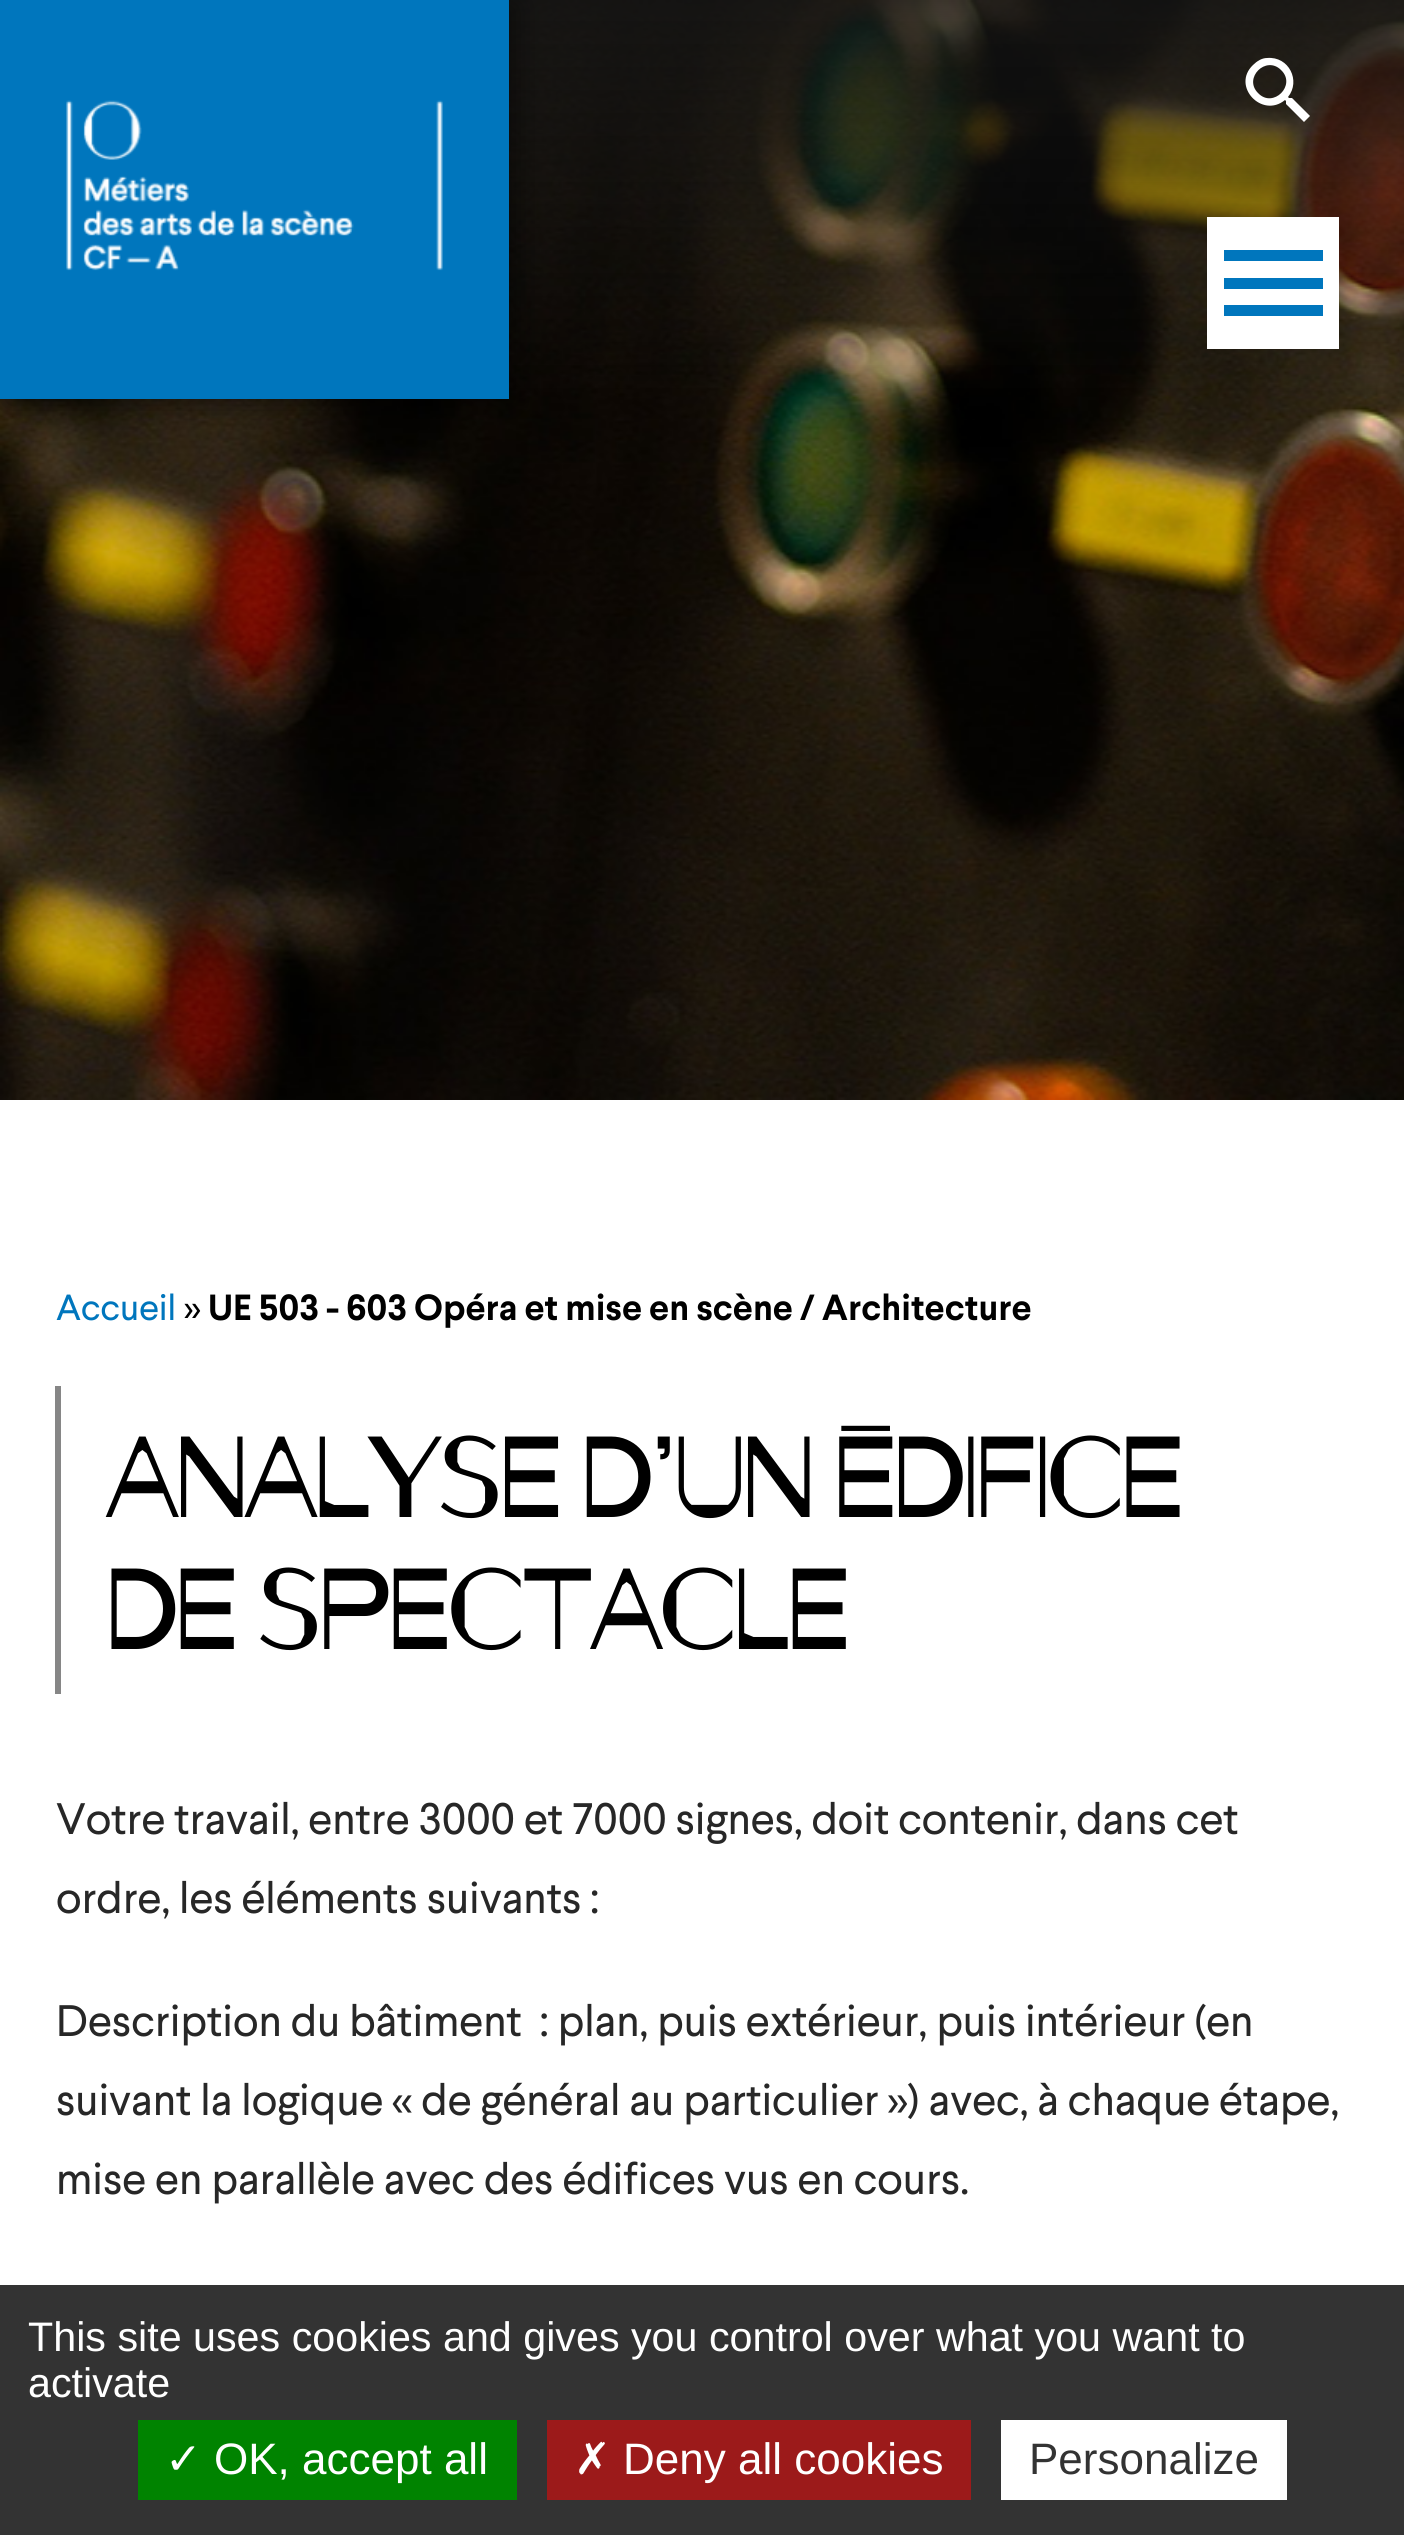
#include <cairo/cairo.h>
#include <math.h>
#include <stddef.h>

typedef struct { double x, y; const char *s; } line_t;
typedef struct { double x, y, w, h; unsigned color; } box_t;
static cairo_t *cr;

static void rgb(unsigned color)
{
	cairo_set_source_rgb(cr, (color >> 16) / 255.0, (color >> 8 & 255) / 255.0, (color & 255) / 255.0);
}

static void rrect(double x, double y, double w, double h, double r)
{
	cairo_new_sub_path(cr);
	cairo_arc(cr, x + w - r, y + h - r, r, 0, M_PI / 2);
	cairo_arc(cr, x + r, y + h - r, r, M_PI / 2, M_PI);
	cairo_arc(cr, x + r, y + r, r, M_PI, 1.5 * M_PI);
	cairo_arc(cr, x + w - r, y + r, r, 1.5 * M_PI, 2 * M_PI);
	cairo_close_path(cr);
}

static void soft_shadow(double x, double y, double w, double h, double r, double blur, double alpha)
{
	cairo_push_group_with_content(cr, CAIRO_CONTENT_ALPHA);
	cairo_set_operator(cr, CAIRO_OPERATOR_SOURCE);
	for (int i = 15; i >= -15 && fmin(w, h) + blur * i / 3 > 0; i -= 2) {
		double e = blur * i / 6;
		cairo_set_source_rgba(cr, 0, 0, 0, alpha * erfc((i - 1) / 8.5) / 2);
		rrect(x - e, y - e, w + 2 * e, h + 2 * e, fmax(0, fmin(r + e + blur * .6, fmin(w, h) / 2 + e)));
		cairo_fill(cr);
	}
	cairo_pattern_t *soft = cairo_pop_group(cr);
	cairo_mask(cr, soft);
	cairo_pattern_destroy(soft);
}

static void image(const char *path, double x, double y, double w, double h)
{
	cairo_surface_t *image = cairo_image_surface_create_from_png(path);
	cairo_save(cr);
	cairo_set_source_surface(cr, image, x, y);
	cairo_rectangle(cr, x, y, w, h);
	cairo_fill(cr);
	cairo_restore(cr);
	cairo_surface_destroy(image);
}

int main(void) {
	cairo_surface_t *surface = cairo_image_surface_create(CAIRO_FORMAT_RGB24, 1404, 2535);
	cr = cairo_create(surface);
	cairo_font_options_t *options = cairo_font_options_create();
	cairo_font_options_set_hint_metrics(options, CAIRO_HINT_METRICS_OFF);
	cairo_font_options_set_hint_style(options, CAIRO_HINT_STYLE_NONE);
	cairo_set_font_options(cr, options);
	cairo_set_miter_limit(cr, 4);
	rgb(0xffffff);
	cairo_paint(cr);
	image("img/1.png", 0, 0, 1404, 1100);
	rgb(0x000000);
	soft_shadow(6, 6, 508, 398, 0, 14, 0.5);
	rgb(0x0076bd);
	cairo_rectangle(cr, 0, 0, 509, 399);
	cairo_fill(cr);
	image("img/2.png", 66, 100, 377, 171);
	rgb(0xffffff);
	cairo_new_path(cr);
	cairo_move_to(cr, 1258, 93);
	cairo_curve_to(cr, 1273, 109, 1297, 85, 1281, 70);
	cairo_curve_to(cr, 1266, 55, 1243, 78, 1258, 93);
	cairo_close_path(cr);
	cairo_move_to(cr, 1292, 98);
	cairo_line_to(cr, 1310, 116);
	cairo_line_to(cr, 1304, 122);
	cairo_line_to(cr, 1286, 104);
	cairo_line_to(cr, 1286, 101);
	cairo_line_to(cr, 1285, 100);
	cairo_curve_to(cr, 1262, 119, 1231, 86, 1253, 65);
	cairo_curve_to(cr, 1257, 61, 1262, 58, 1267, 58);
	cairo_curve_to(cr, 1289, 56, 1301, 81, 1288, 97);
	cairo_line_to(cr, 1289, 98);
	cairo_close_path(cr);
	cairo_fill(cr);
	cairo_rectangle(cr, 1207, 217, 132, 132);
	cairo_fill(cr);
	rgb(0x0076bd);
	cairo_new_path(cr);
	cairo_move_to(cr, 1224, 250);
	cairo_line_to(cr, 1323, 250);
	cairo_line_to(cr, 1323, 261);
	cairo_line_to(cr, 1224, 261);
	cairo_close_path(cr);
	cairo_move_to(cr, 1224, 289);
	cairo_line_to(cr, 1224, 278);
	cairo_line_to(cr, 1323, 278);
	cairo_line_to(cr, 1323, 289);
	cairo_close_path(cr);
	cairo_move_to(cr, 1224, 316);
	cairo_line_to(cr, 1224, 305);
	cairo_line_to(cr, 1323, 305);
	cairo_line_to(cr, 1323, 316);
	cairo_close_path(cr);
	cairo_fill(cr);
	{
		static const box_t items[] = {
			{55, 1386, 6, 308, 0x868686},
			{0, 2285, 1404, 250, 0x333333},
			{138, 2420, 379, 80, 0x008300},
			{547, 2420, 424, 80, 0x9c1a1a},
			{1001, 2420, 286, 80, 0xffffff},
		};
		for (size_t i = 0; i < sizeof items / sizeof *items; i++) {
			rgb(items[i].color);
			cairo_rectangle(cr, items[i].x, items[i].y, items[i].w, items[i].h);
			cairo_fill(cr);
		}
	}
	cairo_select_font_face(cr, "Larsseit", CAIRO_FONT_SLANT_NORMAL, CAIRO_FONT_WEIGHT_NORMAL);
	cairo_set_font_size(cr, 36.3);
	rgb(0x0076bd);
	cairo_move_to(cr, 56, 1320);
	cairo_show_text(cr, "Accueil");
	rgb(0x000000);
	cairo_move_to(cr, 184, 1320);
	cairo_show_text(cr, "»");
	cairo_select_font_face(cr, "Larsseit", CAIRO_FONT_SLANT_NORMAL, CAIRO_FONT_WEIGHT_BOLD);
	cairo_move_to(cr, 208, 1320);
	cairo_show_text(cr, "UE 503 - 603 Opéra et mise en scène / Architecture");
	cairo_select_font_face(cr, "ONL", CAIRO_FONT_SLANT_NORMAL, CAIRO_FONT_WEIGHT_BOLD);
	cairo_set_font_size(cr, 110);
	cairo_move_to(cr, 106, 1517);
	cairo_show_text(cr, "ANALYSE D’UN ÉDIFICE");
	cairo_move_to(cr, 106, 1649);
	cairo_show_text(cr, "DE SPECTACLE");
	cairo_select_font_face(cr, "Larsseit", CAIRO_FONT_SLANT_NORMAL, CAIRO_FONT_WEIGHT_NORMAL);
	cairo_set_font_size(cr, 44);
	rgb(0x272727);
	{
		static const line_t items[] = {
			{56, 1834, "Votre travail, entre 3000 et 7000 signes, doit contenir, dans cet"},
			{56, 1913, "ordre, les éléments suivants :"},
			{56, 2036, "Description du bâtiment  : plan, puis extérieur, puis intérieur (en"},
			{56, 2115, "suivant la logique « de général au particulier ») avec, à chaque étape,"},
			{56, 2194, "mise en parallèle avec des édifices vus en cours."},
		};
		for (size_t i = 0; i < sizeof items / sizeof *items; i++) {
			cairo_move_to(cr, items[i].x, items[i].y);
			cairo_show_text(cr, items[i].s);
		}
	}
	cairo_select_font_face(cr, "Liberation Sans", CAIRO_FONT_SLANT_NORMAL, CAIRO_FONT_WEIGHT_NORMAL);
	cairo_set_font_size(cr, 41.25);
	rgb(0xffffff);
	cairo_move_to(cr, 28, 2351);
	cairo_show_text(cr, "This site uses cookies and gives you control over what you want to");
	cairo_move_to(cr, 28, 2397);
	cairo_show_text(cr, "activate");
	cairo_select_font_face(cr, "DejaVu Sans", CAIRO_FONT_SLANT_NORMAL, CAIRO_FONT_WEIGHT_NORMAL);
	cairo_set_font_size(cr, 44);
	cairo_move_to(cr, 165, 2474);
	cairo_show_text(cr, "✓");
	cairo_select_font_face(cr, "Liberation Sans", CAIRO_FONT_SLANT_NORMAL, CAIRO_FONT_WEIGHT_NORMAL);
	cairo_move_to(cr, 214, 2474);
	cairo_show_text(cr, "OK, accept all");
	cairo_select_font_face(cr, "DejaVu Sans", CAIRO_FONT_SLANT_NORMAL, CAIRO_FONT_WEIGHT_NORMAL);
	cairo_move_to(cr, 574, 2474);
	cairo_show_text(cr, "✗");
	cairo_select_font_face(cr, "Liberation Sans", CAIRO_FONT_SLANT_NORMAL, CAIRO_FONT_WEIGHT_NORMAL);
	cairo_move_to(cr, 623, 2474);
	cairo_show_text(cr, "Deny all cookies");
	rgb(0x333333);
	cairo_move_to(cr, 1029, 2474);
	cairo_show_text(cr, "Personalize");
	cairo_surface_write_to_png(surface, "page.png");
	cairo_font_options_destroy(options);
	cairo_destroy(cr);
	cairo_surface_destroy(surface);
	return 0;
}
